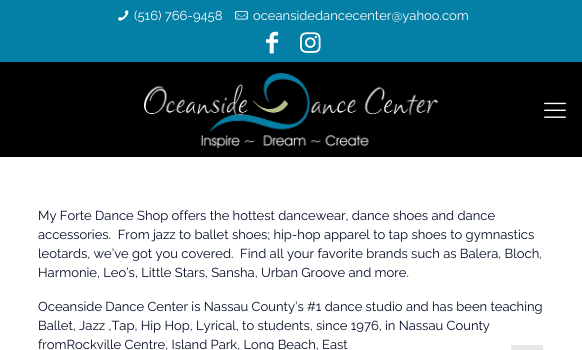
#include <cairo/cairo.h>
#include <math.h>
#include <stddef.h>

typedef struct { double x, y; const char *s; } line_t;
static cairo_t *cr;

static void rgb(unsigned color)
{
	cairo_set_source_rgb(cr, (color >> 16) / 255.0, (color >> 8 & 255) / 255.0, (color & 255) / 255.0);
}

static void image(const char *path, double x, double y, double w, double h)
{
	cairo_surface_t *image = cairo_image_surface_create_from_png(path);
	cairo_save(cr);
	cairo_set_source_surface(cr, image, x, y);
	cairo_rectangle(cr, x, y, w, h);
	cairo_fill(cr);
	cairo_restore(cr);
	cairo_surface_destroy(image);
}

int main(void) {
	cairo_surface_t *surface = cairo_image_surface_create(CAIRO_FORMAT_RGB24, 582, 350);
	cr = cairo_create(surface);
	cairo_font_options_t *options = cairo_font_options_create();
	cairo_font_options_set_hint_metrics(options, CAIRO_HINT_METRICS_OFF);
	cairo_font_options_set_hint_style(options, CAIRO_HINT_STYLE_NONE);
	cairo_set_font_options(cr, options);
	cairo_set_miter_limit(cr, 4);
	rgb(0xffffff);
	cairo_paint(cr);
	rgb(0x047fa5);
	cairo_rectangle(cr, 0, 0, 582, 62);
	cairo_fill(cr);
	image("img/1.png", 118, 10, 11, 11);
	image("img/2.png", 235, 11, 13, 9);
	image("img/3.png", 266, 31, 12, 23);
	image("img/4.png", 300, 32, 21, 21);
	rgb(0x000000);
	cairo_rectangle(cr, 0, 62, 582, 95);
	cairo_fill(cr);
	image("img/5.png", 144, 73, 294, 75);
	image("img/6.png", 544, 102, 22, 16);
	rgb(0xe8e8e8);
	cairo_rectangle(cr, 511, 345, 32, 5);
	cairo_fill(cr);
	cairo_select_font_face(cr, "Raleway", CAIRO_FONT_SLANT_NORMAL, CAIRO_FONT_WEIGHT_NORMAL);
	cairo_set_font_size(cr, 13);
	rgb(0xffffff);
	cairo_move_to(cr, 134, 20);
	cairo_show_text(cr, "(516) 766-9458");
	cairo_move_to(cr, 253, 20);
	cairo_show_text(cr, "oceansidedancecenter@yahoo.com");
	rgb(0x010b23);
	{
		static const line_t items[] = {
			{38, 220, "My Forte Dance Shop offers the hottest dancewear, dance shoes and dance"},
			{38, 239, "accessories.  From jazz to ballet shoes; hip-hop apparel to tap shoes to gymnastics"},
			{38, 258, "leotards, we’ve got you covered.  Find all your favorite brands such as Balera, Bloch,"},
			{38, 277, "Harmonie, Leo’s, Little Stars, Sansha, Urban Groove and more."},
			{38, 311, "Oceanside Dance Center is Nassau County’s #1 dance studio and has been teaching"},
			{38, 330, "Ballet, Jazz ,Tap, Hip Hop, Lyrical, to students, since 1976, in Nassau County"},
			{38, 349, "fromRockville Centre, Island Park, Long Beach, East"},
		};
		for (size_t i = 0; i < sizeof items / sizeof *items; i++) {
			cairo_move_to(cr, items[i].x, items[i].y);
			cairo_show_text(cr, items[i].s);
		}
	}
	cairo_surface_write_to_png(surface, "page.png");
	cairo_font_options_destroy(options);
	cairo_destroy(cr);
	cairo_surface_destroy(surface);
	return 0;
}
